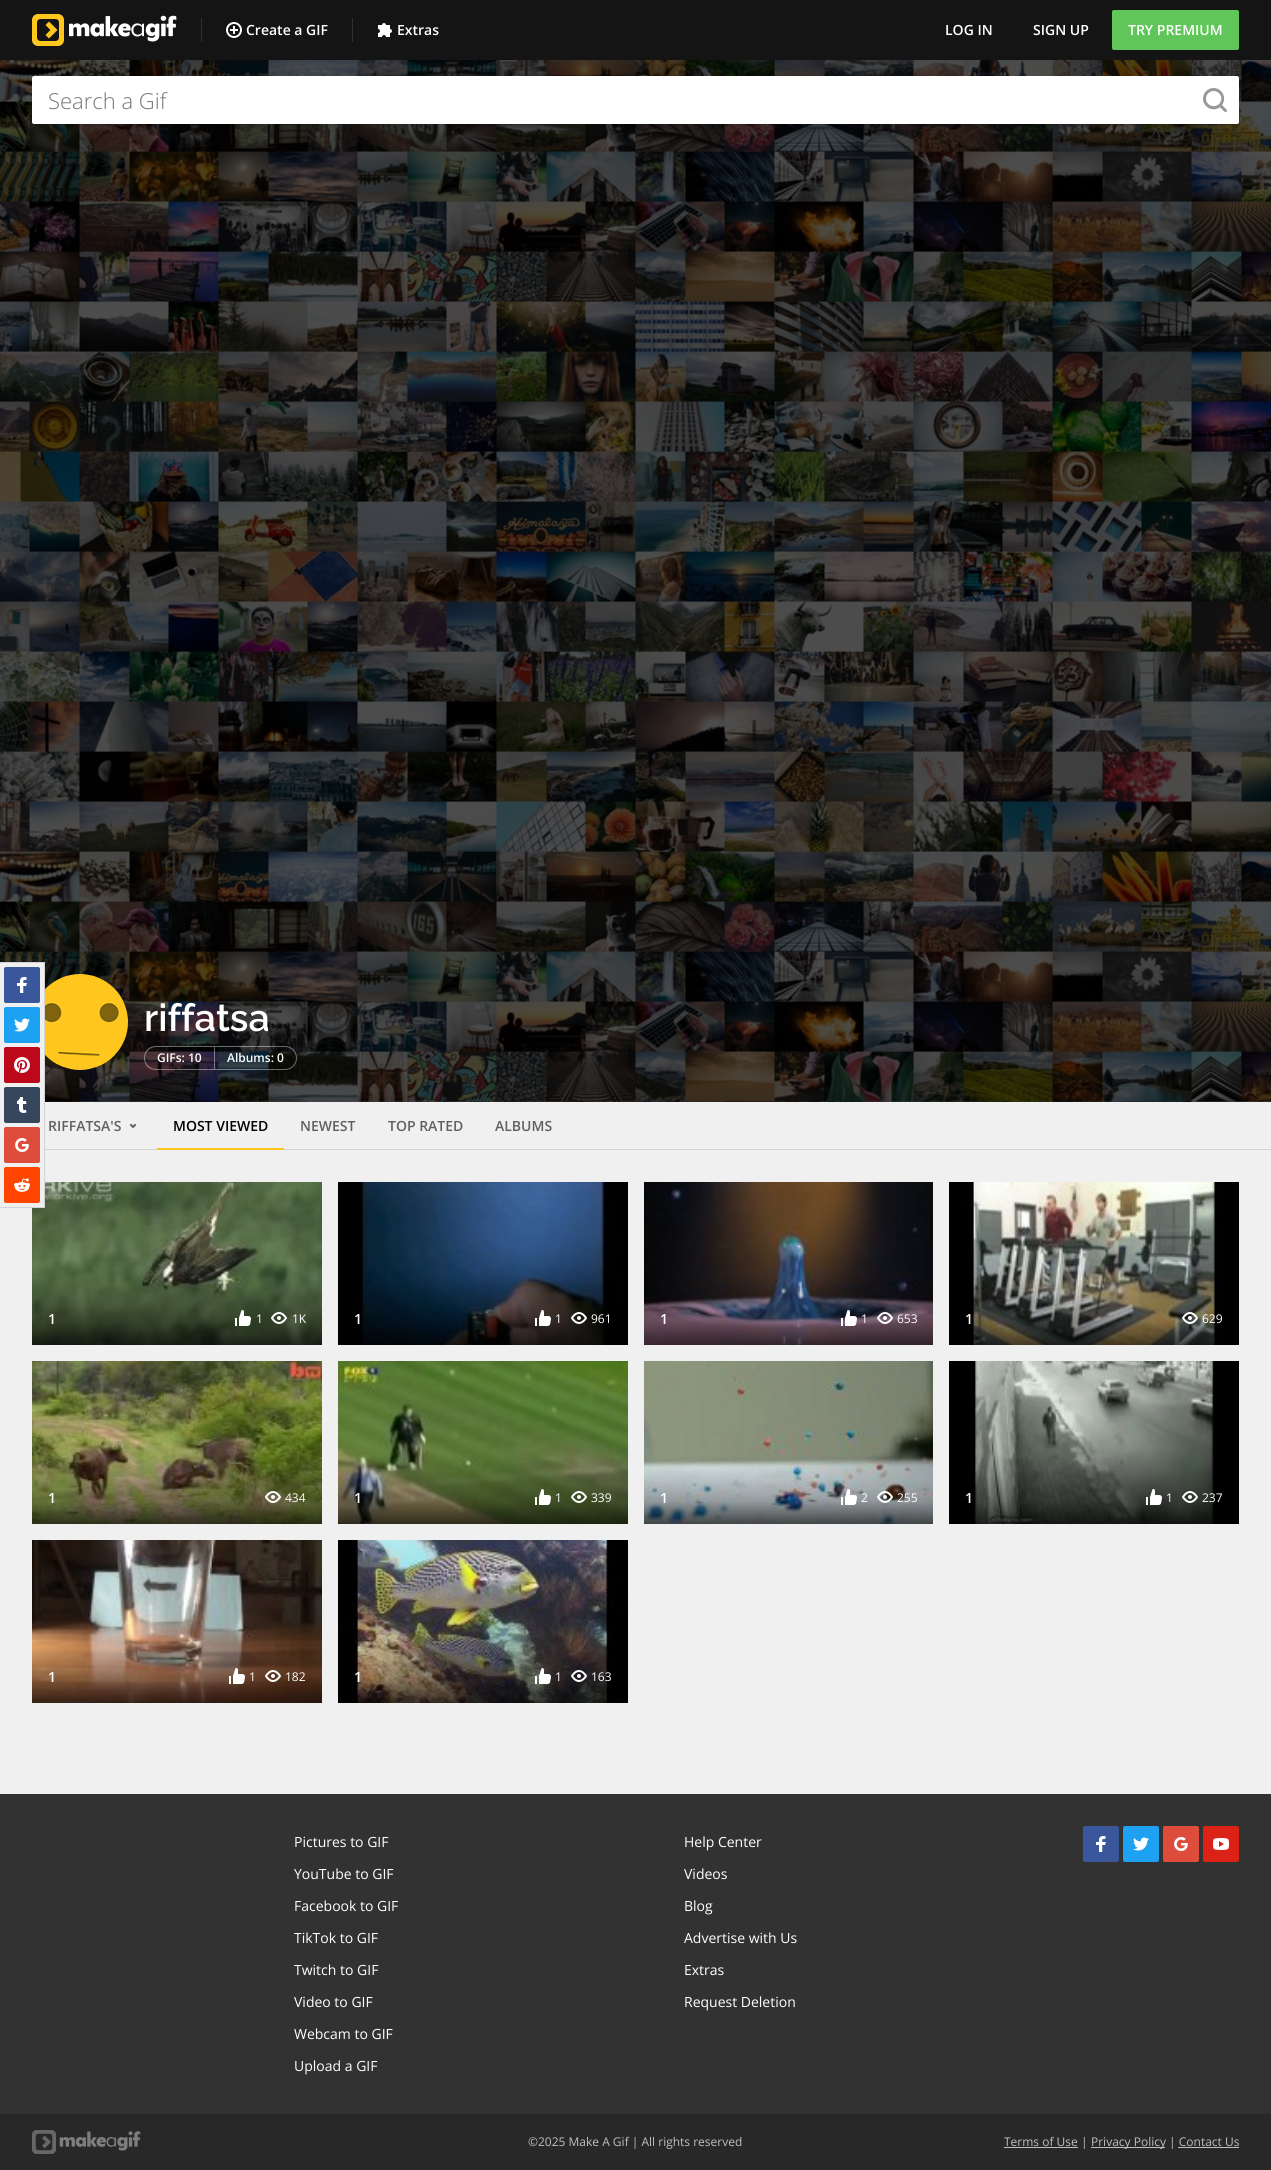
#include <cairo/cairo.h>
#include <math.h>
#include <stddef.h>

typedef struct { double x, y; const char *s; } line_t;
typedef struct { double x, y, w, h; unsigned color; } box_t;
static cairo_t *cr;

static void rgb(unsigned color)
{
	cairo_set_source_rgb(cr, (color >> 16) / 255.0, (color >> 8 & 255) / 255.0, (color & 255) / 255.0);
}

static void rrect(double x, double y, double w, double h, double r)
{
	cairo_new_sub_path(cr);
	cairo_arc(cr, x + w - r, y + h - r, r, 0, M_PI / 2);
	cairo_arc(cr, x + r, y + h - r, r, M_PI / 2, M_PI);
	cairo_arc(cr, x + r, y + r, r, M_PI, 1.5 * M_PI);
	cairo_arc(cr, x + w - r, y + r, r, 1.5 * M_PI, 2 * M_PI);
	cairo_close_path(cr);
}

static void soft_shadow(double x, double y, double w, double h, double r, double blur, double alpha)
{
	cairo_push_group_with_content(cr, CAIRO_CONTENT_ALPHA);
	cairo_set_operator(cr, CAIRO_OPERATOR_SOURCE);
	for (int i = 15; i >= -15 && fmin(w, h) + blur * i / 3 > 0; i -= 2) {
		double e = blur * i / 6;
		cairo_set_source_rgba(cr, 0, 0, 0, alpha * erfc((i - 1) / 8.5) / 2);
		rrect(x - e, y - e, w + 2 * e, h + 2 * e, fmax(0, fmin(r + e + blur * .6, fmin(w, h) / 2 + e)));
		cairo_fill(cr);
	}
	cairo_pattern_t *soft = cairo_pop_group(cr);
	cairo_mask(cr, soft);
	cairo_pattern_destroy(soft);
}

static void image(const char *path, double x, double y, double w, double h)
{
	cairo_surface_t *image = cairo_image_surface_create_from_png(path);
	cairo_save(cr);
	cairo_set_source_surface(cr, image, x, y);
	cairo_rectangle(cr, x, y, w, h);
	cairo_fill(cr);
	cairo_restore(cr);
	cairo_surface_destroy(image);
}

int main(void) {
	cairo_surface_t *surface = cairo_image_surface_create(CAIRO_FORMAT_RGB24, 1271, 2170);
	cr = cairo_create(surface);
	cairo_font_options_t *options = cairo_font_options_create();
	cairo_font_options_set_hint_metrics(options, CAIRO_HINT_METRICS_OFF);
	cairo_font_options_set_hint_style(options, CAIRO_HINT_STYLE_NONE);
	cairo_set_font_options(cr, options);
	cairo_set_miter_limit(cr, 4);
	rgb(0xf0f0f0);
	cairo_paint(cr);
	rgb(0x141414);
	cairo_rectangle(cr, 0, 0, 1271, 60);
	cairo_fill(cr);
	image("img/1.png", 32, 14, 145, 32);
	rgb(0x303030);
	cairo_rectangle(cr, 201, 18, 1, 24);
	cairo_fill(cr);
	image("img/2.png", 226, 22, 16, 16);
	cairo_rectangle(cr, 352, 18, 1, 24);
	cairo_fill(cr);
	image("img/3.png", 378, 23, 14, 14);
	rgb(0x60c659);
	rrect(1112, 10, 127, 40, 2);
	cairo_fill(cr);
	image("img/10.png", 0, 60, 1271, 1042);
	image("img/14.png", 32, 1182, 290, 163);
	rgb(0xf0f0f0);
	cairo_rectangle(cr, 0, 962, 45, 246);
	cairo_fill(cr);
	rgb(0xd3d3d3);
	cairo_new_path(cr);
	cairo_move_to(cr, 0, 962);
	cairo_line_to(cr, 45, 962);
	cairo_line_to(cr, 44, 963);
	cairo_line_to(cr, 0, 963);
	cairo_close_path(cr);
	cairo_fill(cr);
	cairo_set_source_rgba(cr, 0, 0, 0, 0.12);
	cairo_new_path(cr);
	cairo_move_to(cr, 45, 962);
	cairo_line_to(cr, 45, 1208);
	cairo_line_to(cr, 44, 1207);
	cairo_line_to(cr, 44, 963);
	cairo_close_path(cr);
	cairo_fill(cr);
	cairo_new_path(cr);
	cairo_move_to(cr, 45, 1208);
	cairo_line_to(cr, 0, 1208);
	cairo_line_to(cr, 0, 1207);
	cairo_line_to(cr, 44, 1207);
	cairo_close_path(cr);
	cairo_fill(cr);
	rgb(0x39579a);
	rrect(4, 967, 36, 36, 2);
	cairo_fill(cr);
	image("img/4.png", 17, 977, 10, 16);
	rgb(0x1da1f2);
	rrect(4, 1007, 36, 36, 2);
	cairo_fill(cr);
	image("img/5.png", 14, 1018, 16, 14);
	rgb(0xbd081c);
	rrect(4, 1047, 36, 36, 2);
	cairo_fill(cr);
	image("img/6.png", 14, 1057, 16, 16);
	rgb(0x35465d);
	rrect(4, 1087, 36, 36, 2);
	cairo_fill(cr);
	image("img/7.png", 17, 1097, 10, 16);
	rgb(0xde4d3b);
	rrect(4, 1127, 36, 36, 2);
	cairo_fill(cr);
	image("img/8.png", 15, 1138, 14, 14);
	rgb(0xff4500);
	rrect(4, 1167, 36, 36, 2);
	cairo_fill(cr);
	image("img/9.png", 14, 1178, 16, 14);
	rgb(0x000000);
	soft_shadow(34, 81, 1203, 44, 0, 0.5, 0.15);
	rgb(0xffffff);
	rrect(32, 76, 1207, 48, 2);
	cairo_fill(cr);
	image("img/11.png", 1203, 88, 24, 24);
	image("img/12.png", 45, 974, 83, 96);
	cairo_set_source_rgba(cr, 1, 1, 1, 0.4);
	cairo_set_fill_rule(cr, CAIRO_FILL_RULE_EVEN_ODD);
	cairo_new_path(cr);
	cairo_move_to(cr, 156, 1046);
	cairo_line_to(cr, 214, 1046);
	cairo_line_to(cr, 214, 1070);
	cairo_line_to(cr, 156, 1070);
	cairo_curve_to(cr, 149, 1070, 144, 1065, 144, 1058);
	cairo_curve_to(cr, 144, 1051, 149, 1046, 156, 1046);
	cairo_close_path(cr);
	cairo_move_to(cr, 156, 1047);
	cairo_line_to(cr, 214, 1047);
	cairo_line_to(cr, 214, 1069);
	cairo_line_to(cr, 156, 1069);
	cairo_curve_to(cr, 150, 1069, 145, 1064, 145, 1058);
	cairo_curve_to(cr, 145, 1052, 150, 1047, 156, 1047);
	cairo_close_path(cr);
	cairo_fill(cr);
	cairo_new_path(cr);
	cairo_move_to(cr, 214.5, 1046.5);
	cairo_line_to(cr, 285, 1046.5);
	cairo_curve_to(cr, 291.5, 1046.5, 296.5, 1051.5, 296.5, 1058);
	cairo_curve_to(cr, 296.5, 1064.5, 291.5, 1069.5, 285, 1069.5);
	cairo_line_to(cr, 214.5, 1069.5);
	cairo_close_path(cr);
	cairo_set_line_width(cr, 1);
	cairo_stroke(cr);
	rgb(0xd3d3d3);
	cairo_rectangle(cr, 45, 1149, 1226, 1);
	cairo_fill(cr);
	image("img/13.png", 129, 1123, 8, 6);
	rgb(0xffc61e);
	cairo_rectangle(cr, 157, 1148, 127, 2);
	cairo_fill(cr);
	image("img/15.png", 235, 1310, 16, 16);
	image("img/16.png", 271, 1312, 16, 12);
	image("img/17.png", 338, 1182, 290, 163);
	image("img/18.png", 535, 1310, 16, 16);
	image("img/19.png", 571, 1312, 16, 12);
	image("img/20.png", 644, 1182, 289, 163);
	image("img/21.png", 841, 1310, 16, 16);
	image("img/22.png", 877, 1312, 16, 12);
	image("img/23.png", 949, 1182, 290, 163);
	image("img/24.png", 1182, 1312, 16, 12);
	image("img/25.png", 32, 1361, 290, 163);
	image("img/26.png", 265, 1491, 16, 12);
	image("img/27.png", 338, 1361, 290, 163);
	image("img/28.png", 535, 1489, 16, 16);
	image("img/29.png", 571, 1491, 16, 12);
	image("img/30.png", 644, 1361, 289, 163);
	image("img/31.png", 841, 1489, 16, 16);
	image("img/32.png", 877, 1491, 16, 12);
	image("img/33.png", 949, 1361, 290, 163);
	image("img/34.png", 1146, 1489, 16, 16);
	image("img/35.png", 1182, 1491, 16, 12);
	image("img/36.png", 32, 1540, 290, 163);
	image("img/37.png", 229, 1668, 16, 16);
	image("img/38.png", 265, 1670, 16, 12);
	image("img/39.png", 338, 1540, 290, 163);
	image("img/40.png", 535, 1668, 16, 16);
	image("img/41.png", 571, 1670, 16, 12);
	rgb(0x323232);
	cairo_rectangle(cr, 0, 1794, 1271, 320);
	cairo_fill(cr);
	rgb(0x39579a);
	rrect(1083, 1826, 36, 36, 2);
	cairo_fill(cr);
	image("img/4.png", 1096, 1836, 10, 16);
	rgb(0x1da1f2);
	rrect(1123, 1826, 36, 36, 2);
	cairo_fill(cr);
	image("img/5.png", 1133, 1837, 16, 14);
	rgb(0xde4d3b);
	rrect(1163, 1826, 36, 36, 2);
	cairo_fill(cr);
	image("img/8.png", 1174, 1837, 14, 14);
	rgb(0xdc2217);
	rrect(1203, 1826, 36, 36, 2);
	cairo_fill(cr);
	image("img/42.png", 1213, 1838, 16, 12);
	rgb(0x282828);
	cairo_rectangle(cr, 0, 2114, 1271, 56);
	cairo_fill(cr);
	image("img/43.png", 32, 2130, 109, 24);
	{
		static const box_t items[] = {
			{1004, 2147, 74, 1, 0xbfbfbf},
			{1091, 2147, 74, 1, 0xbfbfbf},
			{1178, 2147, 61, 1, 0xbfbfbf},
		};
		for (size_t i = 0; i < sizeof items / sizeof *items; i++) {
			rgb(items[i].color);
			cairo_rectangle(cr, items[i].x, items[i].y, items[i].w, items[i].h);
			cairo_fill(cr);
		}
	}
	cairo_select_font_face(cr, "Open Sans SemiBold", CAIRO_FONT_SLANT_NORMAL, CAIRO_FONT_WEIGHT_NORMAL);
	cairo_set_font_size(cr, 14);
	rgb(0xffffff);
	{
		static const line_t items[] = {
			{246, 35, "Create a GIF"},
			{397, 35, "Extras"},
			{945, 35, "LOG IN"},
			{1033, 35, "SIGN UP"},
			{1128, 35, "TRY PREMIUM"},
		};
		for (size_t i = 0; i < sizeof items / sizeof *items; i++) {
			cairo_move_to(cr, items[i].x, items[i].y);
			cairo_show_text(cr, items[i].s);
		}
	}
	cairo_select_font_face(cr, "Open Sans Light", CAIRO_FONT_SLANT_NORMAL, CAIRO_FONT_WEIGHT_NORMAL);
	cairo_set_font_size(cr, 22);
	rgb(0x757575);
	cairo_move_to(cr, 48, 109);
	cairo_show_text(cr, "Search a Gif");
	cairo_select_font_face(cr, "Raleway SemiBold", CAIRO_FONT_SLANT_NORMAL, CAIRO_FONT_WEIGHT_NORMAL);
	cairo_set_font_size(cr, 38);
	rgb(0xffffff);
	cairo_move_to(cr, 144, 1031);
	cairo_show_text(cr, "riffatsa");
	cairo_select_font_face(cr, "Open Sans SemiBold", CAIRO_FONT_SLANT_NORMAL, CAIRO_FONT_WEIGHT_NORMAL);
	cairo_set_font_size(cr, 12);
	cairo_move_to(cr, 157, 1062);
	cairo_show_text(cr, "GIFs: 10");
	cairo_move_to(cr, 227, 1062);
	cairo_show_text(cr, "Albums: 0");
	cairo_set_font_size(cr, 14);
	rgb(0x606060);
	cairo_move_to(cr, 48, 1131);
	cairo_show_text(cr, "RIFFATSA'S");
	rgb(0x000000);
	cairo_move_to(cr, 173, 1131);
	cairo_show_text(cr, "MOST VIEWED");
	rgb(0x606060);
	{
		static const line_t items[] = {
			{300, 1131, "NEWEST"},
			{388, 1131, "TOP RATED"},
			{495, 1131, "ALBUMS"},
		};
		for (size_t i = 0; i < sizeof items / sizeof *items; i++) {
			cairo_move_to(cr, items[i].x, items[i].y);
			cairo_show_text(cr, items[i].s);
		}
	}
	rgb(0xffffff);
	cairo_move_to(cr, 48, 1324);
	cairo_show_text(cr, "1");
	cairo_select_font_face(cr, "Open Sans", CAIRO_FONT_SLANT_NORMAL, CAIRO_FONT_WEIGHT_NORMAL);
	cairo_set_font_size(cr, 12);
	cairo_move_to(cr, 256, 1323);
	cairo_show_text(cr, "1");
	cairo_move_to(cr, 292, 1323);
	cairo_show_text(cr, "1K");
	cairo_select_font_face(cr, "Open Sans SemiBold", CAIRO_FONT_SLANT_NORMAL, CAIRO_FONT_WEIGHT_NORMAL);
	cairo_set_font_size(cr, 14);
	cairo_move_to(cr, 354, 1324);
	cairo_show_text(cr, "1");
	cairo_select_font_face(cr, "Open Sans", CAIRO_FONT_SLANT_NORMAL, CAIRO_FONT_WEIGHT_NORMAL);
	cairo_set_font_size(cr, 12);
	cairo_move_to(cr, 555, 1323);
	cairo_show_text(cr, "1");
	cairo_move_to(cr, 591, 1323);
	cairo_show_text(cr, "961");
	cairo_select_font_face(cr, "Open Sans SemiBold", CAIRO_FONT_SLANT_NORMAL, CAIRO_FONT_WEIGHT_NORMAL);
	cairo_set_font_size(cr, 14);
	cairo_move_to(cr, 660, 1324);
	cairo_show_text(cr, "1");
	cairo_select_font_face(cr, "Open Sans", CAIRO_FONT_SLANT_NORMAL, CAIRO_FONT_WEIGHT_NORMAL);
	cairo_set_font_size(cr, 12);
	cairo_move_to(cr, 861, 1323);
	cairo_show_text(cr, "1");
	cairo_move_to(cr, 897, 1323);
	cairo_show_text(cr, "653");
	cairo_select_font_face(cr, "Open Sans SemiBold", CAIRO_FONT_SLANT_NORMAL, CAIRO_FONT_WEIGHT_NORMAL);
	cairo_set_font_size(cr, 14);
	cairo_move_to(cr, 965, 1324);
	cairo_show_text(cr, "1");
	cairo_select_font_face(cr, "Open Sans", CAIRO_FONT_SLANT_NORMAL, CAIRO_FONT_WEIGHT_NORMAL);
	cairo_set_font_size(cr, 12);
	cairo_move_to(cr, 1202, 1323);
	cairo_show_text(cr, "629");
	cairo_select_font_face(cr, "Open Sans SemiBold", CAIRO_FONT_SLANT_NORMAL, CAIRO_FONT_WEIGHT_NORMAL);
	cairo_set_font_size(cr, 14);
	cairo_move_to(cr, 48, 1503);
	cairo_show_text(cr, "1");
	cairo_select_font_face(cr, "Open Sans", CAIRO_FONT_SLANT_NORMAL, CAIRO_FONT_WEIGHT_NORMAL);
	cairo_set_font_size(cr, 12);
	cairo_move_to(cr, 285, 1502);
	cairo_show_text(cr, "434");
	cairo_select_font_face(cr, "Open Sans SemiBold", CAIRO_FONT_SLANT_NORMAL, CAIRO_FONT_WEIGHT_NORMAL);
	cairo_set_font_size(cr, 14);
	cairo_move_to(cr, 354, 1503);
	cairo_show_text(cr, "1");
	cairo_select_font_face(cr, "Open Sans", CAIRO_FONT_SLANT_NORMAL, CAIRO_FONT_WEIGHT_NORMAL);
	cairo_set_font_size(cr, 12);
	cairo_move_to(cr, 555, 1502);
	cairo_show_text(cr, "1");
	cairo_move_to(cr, 591, 1502);
	cairo_show_text(cr, "339");
	cairo_select_font_face(cr, "Open Sans SemiBold", CAIRO_FONT_SLANT_NORMAL, CAIRO_FONT_WEIGHT_NORMAL);
	cairo_set_font_size(cr, 14);
	cairo_move_to(cr, 660, 1503);
	cairo_show_text(cr, "1");
	cairo_select_font_face(cr, "Open Sans", CAIRO_FONT_SLANT_NORMAL, CAIRO_FONT_WEIGHT_NORMAL);
	cairo_set_font_size(cr, 12);
	cairo_move_to(cr, 861, 1502);
	cairo_show_text(cr, "2");
	cairo_move_to(cr, 897, 1502);
	cairo_show_text(cr, "255");
	cairo_select_font_face(cr, "Open Sans SemiBold", CAIRO_FONT_SLANT_NORMAL, CAIRO_FONT_WEIGHT_NORMAL);
	cairo_set_font_size(cr, 14);
	cairo_move_to(cr, 965, 1503);
	cairo_show_text(cr, "1");
	cairo_select_font_face(cr, "Open Sans", CAIRO_FONT_SLANT_NORMAL, CAIRO_FONT_WEIGHT_NORMAL);
	cairo_set_font_size(cr, 12);
	cairo_move_to(cr, 1166, 1502);
	cairo_show_text(cr, "1");
	cairo_move_to(cr, 1202, 1502);
	cairo_show_text(cr, "237");
	cairo_select_font_face(cr, "Open Sans SemiBold", CAIRO_FONT_SLANT_NORMAL, CAIRO_FONT_WEIGHT_NORMAL);
	cairo_set_font_size(cr, 14);
	cairo_move_to(cr, 48, 1682);
	cairo_show_text(cr, "1");
	cairo_select_font_face(cr, "Open Sans", CAIRO_FONT_SLANT_NORMAL, CAIRO_FONT_WEIGHT_NORMAL);
	cairo_set_font_size(cr, 12);
	cairo_move_to(cr, 249, 1681);
	cairo_show_text(cr, "1");
	cairo_move_to(cr, 285, 1681);
	cairo_show_text(cr, "182");
	cairo_select_font_face(cr, "Open Sans SemiBold", CAIRO_FONT_SLANT_NORMAL, CAIRO_FONT_WEIGHT_NORMAL);
	cairo_set_font_size(cr, 14);
	cairo_move_to(cr, 354, 1682);
	cairo_show_text(cr, "1");
	cairo_select_font_face(cr, "Open Sans", CAIRO_FONT_SLANT_NORMAL, CAIRO_FONT_WEIGHT_NORMAL);
	cairo_set_font_size(cr, 12);
	cairo_move_to(cr, 555, 1681);
	cairo_show_text(cr, "1");
	cairo_move_to(cr, 591, 1681);
	cairo_show_text(cr, "163");
	cairo_set_font_size(cr, 14);
	{
		static const line_t items[] = {
			{294, 1847, "Pictures to GIF"},
			{294, 1879, "YouTube to GIF"},
			{294, 1911, "Facebook to GIF"},
			{294, 1943, "TikTok to GIF"},
			{294, 1975, "Twitch to GIF"},
			{294, 2007, "Video to GIF"},
			{294, 2039, "Webcam to GIF"},
			{294, 2071, "Upload a GIF"},
			{684, 1847, "Help Center"},
			{684, 1879, "Videos"},
			{684, 1911, "Blog"},
			{684, 1943, "Advertise with Us"},
			{684, 1975, "Extras"},
			{684, 2007, "Request Deletion"},
		};
		for (size_t i = 0; i < sizeof items / sizeof *items; i++) {
			cairo_move_to(cr, items[i].x, items[i].y);
			cairo_show_text(cr, items[i].s);
		}
	}
	cairo_set_font_size(cr, 12);
	rgb(0xbfbfbf);
	{
		static const line_t items[] = {
			{528, 2146, "©2025 Make A Gif | All rights reserved"},
			{1004, 2146, "Terms of Use |"},
			{1091, 2146, "Privacy Policy | Contact Us"},
		};
		for (size_t i = 0; i < sizeof items / sizeof *items; i++) {
			cairo_move_to(cr, items[i].x, items[i].y);
			cairo_show_text(cr, items[i].s);
		}
	}
	cairo_surface_write_to_png(surface, "page.png");
	cairo_font_options_destroy(options);
	cairo_destroy(cr);
	cairo_surface_destroy(surface);
	return 0;
}
